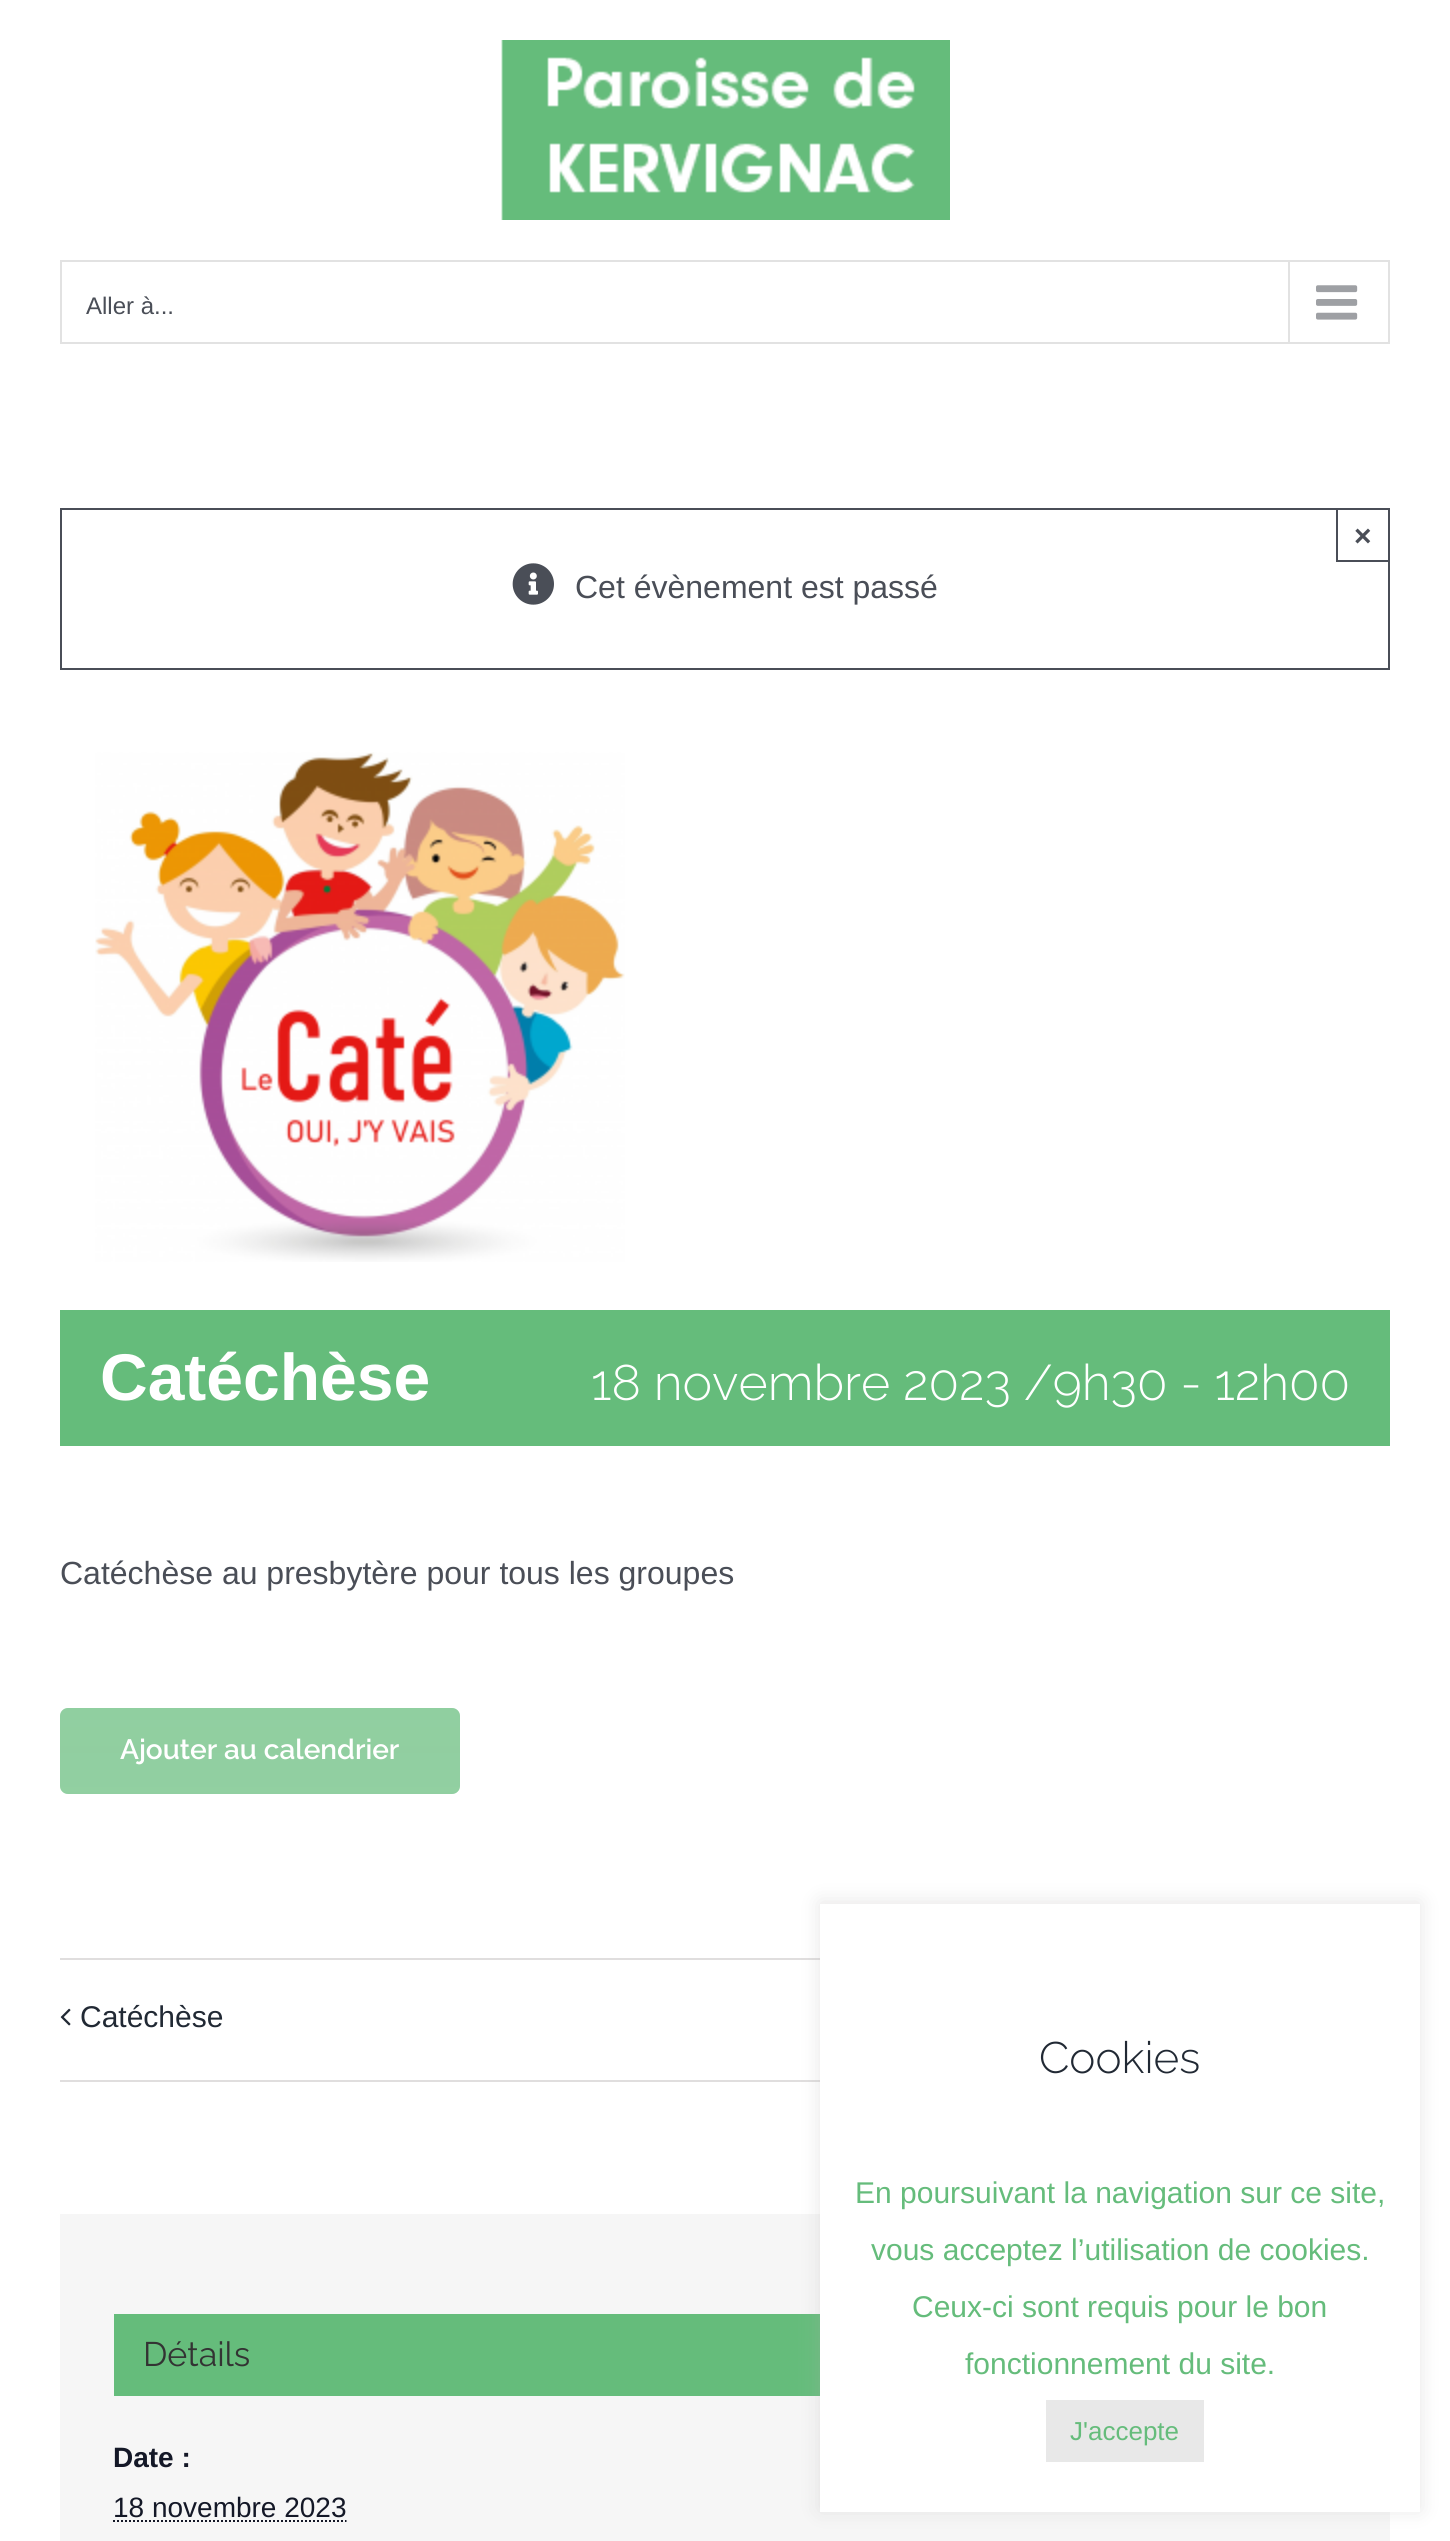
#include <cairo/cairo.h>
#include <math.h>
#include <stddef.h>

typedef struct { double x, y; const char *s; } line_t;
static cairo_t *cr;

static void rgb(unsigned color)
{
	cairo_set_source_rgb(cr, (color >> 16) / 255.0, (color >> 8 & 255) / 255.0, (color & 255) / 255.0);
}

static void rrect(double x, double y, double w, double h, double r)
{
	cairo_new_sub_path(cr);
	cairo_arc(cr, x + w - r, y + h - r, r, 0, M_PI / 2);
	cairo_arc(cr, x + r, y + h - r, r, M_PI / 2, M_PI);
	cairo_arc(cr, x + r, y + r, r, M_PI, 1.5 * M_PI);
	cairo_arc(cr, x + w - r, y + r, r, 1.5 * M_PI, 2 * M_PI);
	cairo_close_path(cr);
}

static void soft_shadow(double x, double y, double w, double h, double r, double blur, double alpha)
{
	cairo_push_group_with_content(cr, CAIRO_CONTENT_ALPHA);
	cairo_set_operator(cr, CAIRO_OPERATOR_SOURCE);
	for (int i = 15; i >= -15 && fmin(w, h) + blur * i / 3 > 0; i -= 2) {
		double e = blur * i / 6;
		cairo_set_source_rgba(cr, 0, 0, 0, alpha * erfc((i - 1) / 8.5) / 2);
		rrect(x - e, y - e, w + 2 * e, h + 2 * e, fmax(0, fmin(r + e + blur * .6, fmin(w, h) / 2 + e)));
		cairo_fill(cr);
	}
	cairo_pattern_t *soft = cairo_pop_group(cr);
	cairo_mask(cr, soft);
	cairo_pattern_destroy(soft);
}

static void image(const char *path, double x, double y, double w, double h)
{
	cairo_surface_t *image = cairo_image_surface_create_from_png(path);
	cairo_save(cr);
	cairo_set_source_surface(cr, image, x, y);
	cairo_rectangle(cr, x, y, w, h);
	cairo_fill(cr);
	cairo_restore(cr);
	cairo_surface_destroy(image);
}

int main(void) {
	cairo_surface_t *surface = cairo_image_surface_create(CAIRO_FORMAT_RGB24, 1450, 2541);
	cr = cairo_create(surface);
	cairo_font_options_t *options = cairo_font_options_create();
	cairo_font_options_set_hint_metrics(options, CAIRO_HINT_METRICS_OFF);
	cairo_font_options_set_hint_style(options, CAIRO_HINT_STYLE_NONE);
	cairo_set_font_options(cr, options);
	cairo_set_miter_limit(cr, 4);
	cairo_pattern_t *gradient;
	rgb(0xffffff);
	cairo_paint(cr);
	image("img/1.png", 501, 40, 449, 180);
	cairo_rectangle(cr, 61, 261, 1328, 82);
	rgb(0xe2e2e2);
	cairo_stroke(cr);
	cairo_rectangle(cr, 1288, 262, 2, 80);
	cairo_fill(cr);
	image("img/2.png", 1316, 285, 42, 35);
	cairo_rectangle(cr, 61, 509, 1328, 160);
	rgb(0x4a4e57);
	cairo_stroke(cr);
	cairo_rectangle(cr, 1337, 509, 52, 52);
	cairo_stroke(cr);
	image("img/3.png", 512, 563, 42, 42);
	image("img/4.png", 95, 752, 530, 510);
	rgb(0x65bc7b);
	cairo_rectangle(cr, 60, 1310, 1330, 136);
	cairo_fill(cr);
	rgb(0xb7e0c1);
	rrect(60, 1708, 400, 86, 8);
	cairo_fill(cr);
	gradient = cairo_pattern_create_linear(260, 1708, 260, 1794);
	cairo_pattern_add_color_stop_rgba(gradient, 0, 0.396, 0.737, 0.482, 0.47);
	cairo_pattern_add_color_stop_rgba(gradient, 1, 0.396, 0.737, 0.482, 0.46);
	cairo_set_source(cr, gradient);
	cairo_pattern_destroy(gradient);
	rrect(60, 1708, 400, 86, 8);
	cairo_fill(cr);
	rgb(0xe0dede);
	cairo_rectangle(cr, 60, 1958, 760, 2);
	cairo_fill(cr);
	cairo_rectangle(cr, 60, 2080, 760, 2);
	cairo_fill(cr);
	image("img/5.png", 60, 2008, 11, 18);
	rgb(0xf6f6f6);
	cairo_rectangle(cr, 60, 2214, 1330, 327);
	cairo_fill(cr);
	rgb(0x65bc7b);
	cairo_rectangle(cr, 114, 2314, 706, 82);
	cairo_fill(cr);
	cairo_new_path(cr);
	cairo_move_to(cr, 113, 2521);
	cairo_line_to(cr, 346.5, 2521);
	rgb(0x141827);
	cairo_set_dash(cr, (double[]){2, 2}, 2, 0);
	cairo_stroke(cr);
	rgb(0xacabab);
	soft_shadow(820, 1902, 600, 608, 0, 10, 0.3);
	rgb(0xffffff);
	cairo_rectangle(cr, 820, 1904, 600, 608);
	cairo_fill(cr);
	rgb(0xe8e8e8);
	cairo_rectangle(cr, 1046, 2400, 158, 62);
	cairo_fill(cr);
	cairo_select_font_face(cr, "Liberation Sans", CAIRO_FONT_SLANT_NORMAL, CAIRO_FONT_WEIGHT_NORMAL);
	cairo_set_font_size(cr, 24);
	rgb(0x4a4e57);
	cairo_move_to(cr, 86, 314);
	cairo_show_text(cr, "Aller à...");
	cairo_select_font_face(cr, "Liberation Sans", CAIRO_FONT_SLANT_NORMAL, CAIRO_FONT_WEIGHT_BOLD);
	cairo_set_font_size(cr, 30);
	cairo_move_to(cr, 1354, 546);
	cairo_show_text(cr, "×");
	cairo_select_font_face(cr, "Liberation Sans", CAIRO_FONT_SLANT_NORMAL, CAIRO_FONT_WEIGHT_NORMAL);
	cairo_set_font_size(cr, 32);
	cairo_move_to(cr, 575, 598);
	cairo_show_text(cr, "Cet évènement est passé");
	cairo_select_font_face(cr, "Liberation Sans", CAIRO_FONT_SLANT_NORMAL, CAIRO_FONT_WEIGHT_BOLD);
	cairo_set_font_size(cr, 66);
	rgb(0xffffff);
	cairo_move_to(cr, 100, 1400);
	cairo_show_text(cr, "Catéchèse");
	cairo_select_font_face(cr, "Raleway Light", CAIRO_FONT_SLANT_NORMAL, CAIRO_FONT_WEIGHT_NORMAL);
	cairo_set_font_size(cr, 50);
	cairo_move_to(cr, 591, 1400);
	cairo_show_text(cr, "18 novembre 2023 /9h30 - 12h00");
	cairo_select_font_face(cr, "Liberation Sans", CAIRO_FONT_SLANT_NORMAL, CAIRO_FONT_WEIGHT_NORMAL);
	cairo_set_font_size(cr, 32);
	rgb(0x4a4e57);
	cairo_move_to(cr, 60, 1584);
	cairo_show_text(cr, "Catéchèse au presbytère pour tous les groupes");
	cairo_select_font_face(cr, "Raleway SemiBold", CAIRO_FONT_SLANT_NORMAL, CAIRO_FONT_WEIGHT_NORMAL);
	cairo_set_font_size(cr, 28);
	rgb(0xffffff);
	cairo_move_to(cr, 120, 1759);
	cairo_show_text(cr, "Ajouter au calendrier");
	cairo_select_font_face(cr, "Liberation Sans", CAIRO_FONT_SLANT_NORMAL, CAIRO_FONT_WEIGHT_NORMAL);
	cairo_set_font_size(cr, 30);
	rgb(0x212934);
	cairo_move_to(cr, 80, 2027);
	cairo_show_text(cr, "Catéchèse");
	cairo_select_font_face(cr, "Raleway", CAIRO_FONT_SLANT_NORMAL, CAIRO_FONT_WEIGHT_NORMAL);
	cairo_set_font_size(cr, 34);
	rgb(0x333333);
	cairo_move_to(cr, 143, 2366);
	cairo_show_text(cr, "Détails");
	cairo_select_font_face(cr, "Liberation Sans", CAIRO_FONT_SLANT_NORMAL, CAIRO_FONT_WEIGHT_BOLD);
	cairo_set_font_size(cr, 28);
	rgb(0x141827);
	cairo_move_to(cr, 113, 2467);
	cairo_show_text(cr, "Date :");
	cairo_select_font_face(cr, "Liberation Sans", CAIRO_FONT_SLANT_NORMAL, CAIRO_FONT_WEIGHT_NORMAL);
	cairo_move_to(cr, 113, 2517);
	cairo_show_text(cr, "18 novembre 2023");
	cairo_select_font_face(cr, "Raleway Light", CAIRO_FONT_SLANT_NORMAL, CAIRO_FONT_WEIGHT_NORMAL);
	cairo_set_font_size(cr, 44);
	rgb(0x212934);
	cairo_move_to(cr, 1039, 2073);
	cairo_show_text(cr, "Cookies");
	cairo_select_font_face(cr, "Liberation Sans", CAIRO_FONT_SLANT_NORMAL, CAIRO_FONT_WEIGHT_NORMAL);
	cairo_set_font_size(cr, 30);
	rgb(0x65bc7b);
	{
		static const line_t items[] = {
			{855, 2203, "En poursuivant la navigation sur ce site,"},
			{871, 2260, "vous acceptez l’utilisation de cookies."},
			{912, 2317, "Ceux-ci sont requis pour le bon"},
			{965, 2374, "fonctionnement du site."},
		};
		for (size_t i = 0; i < sizeof items / sizeof *items; i++) {
			cairo_move_to(cr, items[i].x, items[i].y);
			cairo_show_text(cr, items[i].s);
		}
	}
	cairo_set_font_size(cr, 26);
	cairo_move_to(cr, 1070, 2440);
	cairo_show_text(cr, "J'accepte");
	cairo_surface_write_to_png(surface, "page.png");
	cairo_font_options_destroy(options);
	cairo_destroy(cr);
	cairo_surface_destroy(surface);
	return 0;
}
